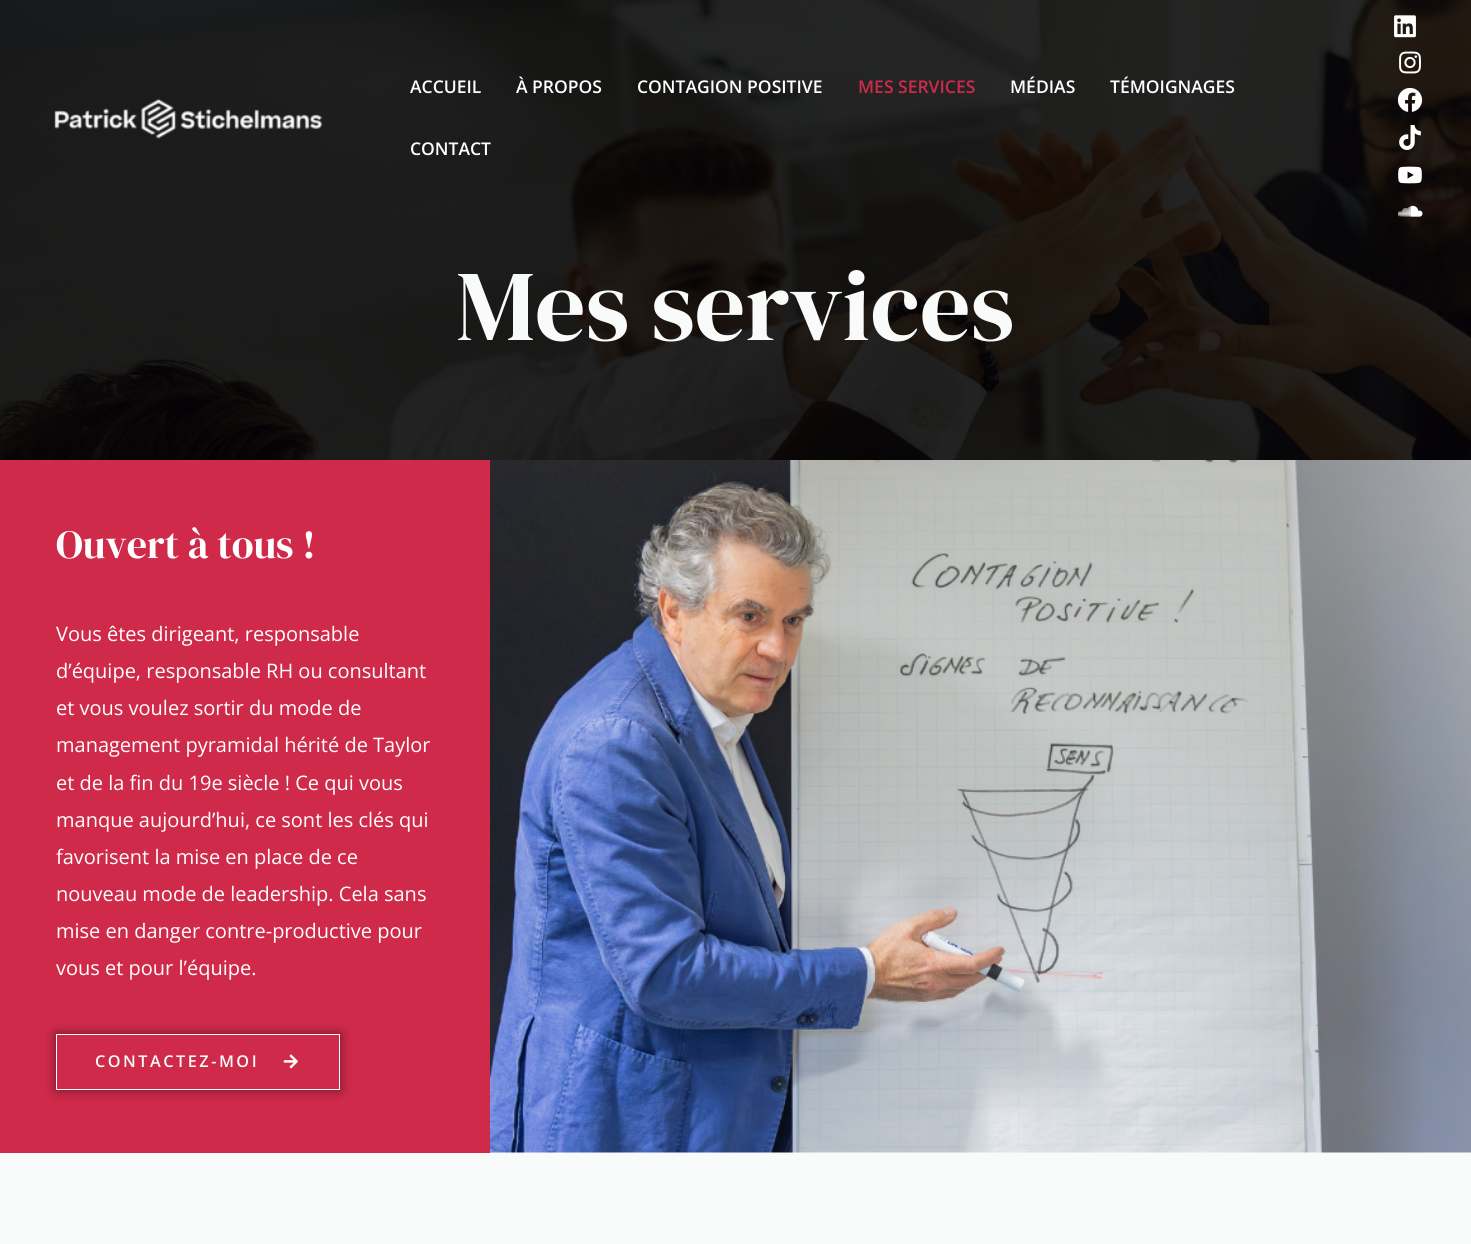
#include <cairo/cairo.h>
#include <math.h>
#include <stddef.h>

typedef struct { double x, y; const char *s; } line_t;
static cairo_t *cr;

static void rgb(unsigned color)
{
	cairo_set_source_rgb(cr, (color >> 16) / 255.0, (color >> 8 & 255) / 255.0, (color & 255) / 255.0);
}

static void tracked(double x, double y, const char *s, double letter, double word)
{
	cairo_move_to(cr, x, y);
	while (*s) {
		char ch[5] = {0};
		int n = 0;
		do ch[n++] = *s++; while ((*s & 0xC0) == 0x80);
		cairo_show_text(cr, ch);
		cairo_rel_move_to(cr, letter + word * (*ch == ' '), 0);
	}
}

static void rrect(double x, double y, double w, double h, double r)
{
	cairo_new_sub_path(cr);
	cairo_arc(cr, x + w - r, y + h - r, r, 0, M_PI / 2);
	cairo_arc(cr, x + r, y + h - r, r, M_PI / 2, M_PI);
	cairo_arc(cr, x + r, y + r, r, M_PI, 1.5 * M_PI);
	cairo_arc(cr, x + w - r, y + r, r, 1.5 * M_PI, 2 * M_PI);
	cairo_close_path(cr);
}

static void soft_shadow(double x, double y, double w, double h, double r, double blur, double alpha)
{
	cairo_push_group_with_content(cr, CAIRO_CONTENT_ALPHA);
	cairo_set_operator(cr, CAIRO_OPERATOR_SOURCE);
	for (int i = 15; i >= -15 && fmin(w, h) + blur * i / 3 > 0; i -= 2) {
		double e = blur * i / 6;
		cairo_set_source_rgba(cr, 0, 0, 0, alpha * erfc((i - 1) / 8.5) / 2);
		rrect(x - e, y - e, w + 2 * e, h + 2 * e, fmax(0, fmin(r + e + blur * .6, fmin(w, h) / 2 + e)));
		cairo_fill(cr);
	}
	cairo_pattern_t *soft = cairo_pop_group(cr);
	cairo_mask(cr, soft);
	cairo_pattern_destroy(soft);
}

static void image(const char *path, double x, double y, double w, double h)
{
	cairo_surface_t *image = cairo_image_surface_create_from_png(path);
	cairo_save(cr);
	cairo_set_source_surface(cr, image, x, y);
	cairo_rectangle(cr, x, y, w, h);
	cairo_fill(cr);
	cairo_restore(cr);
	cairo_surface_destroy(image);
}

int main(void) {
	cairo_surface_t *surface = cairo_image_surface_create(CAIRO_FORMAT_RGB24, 1471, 1244);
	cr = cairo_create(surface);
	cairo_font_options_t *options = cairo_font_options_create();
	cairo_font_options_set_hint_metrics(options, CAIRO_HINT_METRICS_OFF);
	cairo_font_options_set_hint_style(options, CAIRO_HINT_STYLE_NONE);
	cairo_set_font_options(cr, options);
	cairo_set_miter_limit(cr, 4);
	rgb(0xf9fafa);
	cairo_paint(cr);
	image("img/8.png", 0, 0, 1471, 460);
	image("img/1.png", 54, 98, 269, 41);
	image("img/2.png", 1394, 15, 22, 23);
	image("img/3.png", 1399, 51, 22, 23);
	image("img/4.png", 1398, 88, 25, 24);
	image("img/5.png", 1399, 125, 22, 25);
	image("img/6.png", 1398, 166, 24, 18);
	image("img/7.png", 1398, 205, 25, 12);
	rgb(0xd02a4a);
	cairo_rectangle(cr, 0, 460, 490, 693);
	cairo_fill(cr);
	rgb(0x000000);
	soft_shadow(56, 1034, 284, 56, 0, 6, 0.5);
	rgb(0xd02a4a);
	cairo_rectangle(cr, 56.5, 1034.5, 283, 55);
	cairo_fill_preserve(cr);
	rgb(0xffffff);
	cairo_set_line_width(cr, 1);
	cairo_stroke(cr);
	image("img/9.png", 283, 1054, 15, 15);
	image("img/10.png", 490, 460, 981, 693);
	cairo_select_font_face(cr, "Open Sans SemiBold", CAIRO_FONT_SLANT_NORMAL, CAIRO_FONT_WEIGHT_NORMAL);
	cairo_set_font_size(cr, 17.5);
	{
		static const line_t items[] = {
			{410, 93, "ACCUEIL"},
			{516, 93, "À PROPOS"},
			{637, 93, "CONTAGION POSITIVE"},
		};
		for (size_t i = 0; i < sizeof items / sizeof *items; i++) {
			cairo_move_to(cr, items[i].x, items[i].y);
			cairo_show_text(cr, items[i].s);
		}
	}
	rgb(0xd02a4a);
	cairo_move_to(cr, 858, 93);
	cairo_show_text(cr, "MES SERVICES");
	rgb(0xffffff);
	{
		static const line_t items[] = {
			{1010, 93, "MÉDIAS"},
			{1110, 93, "TÉMOIGNAGES"},
			{410, 155, "CONTACT"},
		};
		for (size_t i = 0; i < sizeof items / sizeof *items; i++) {
			cairo_move_to(cr, items[i].x, items[i].y);
			cairo_show_text(cr, items[i].s);
		}
	}
	cairo_select_font_face(cr, "DM Serif Display", CAIRO_FONT_SLANT_NORMAL, CAIRO_FONT_WEIGHT_NORMAL);
	cairo_set_font_size(cr, 100);
	rgb(0xf9fafa);
	cairo_move_to(cr, 456, 340);
	cairo_show_text(cr, "Mes services");
	cairo_set_font_size(cr, 40);
	rgb(0xffffff);
	cairo_move_to(cr, 56, 558);
	cairo_show_text(cr, "Ouvert à tous !");
	cairo_select_font_face(cr, "Open Sans", CAIRO_FONT_SLANT_NORMAL, CAIRO_FONT_WEIGHT_NORMAL);
	cairo_set_font_size(cr, 20);
	{
		static const line_t items[] = {
			{56, 641, "Vous êtes dirigeant, responsable"},
			{56, 678, "d’équipe, responsable RH ou consultant"},
			{56, 715, "et vous voulez sortir du mode de"},
			{56, 752, "management pyramidal hérité de Taylor"},
			{56, 790, "et de la fin du 19e siècle ! Ce qui vous"},
			{56, 827, "manque aujourd’hui, ce sont les clés qui"},
			{56, 864, "favorisent la mise en place de ce"},
			{56, 901, "nouveau mode de leadership. Cela sans"},
			{56, 938, "mise en danger contre-productive pour"},
			{56, 975, "vous et pour l’équipe."},
		};
		for (size_t i = 0; i < sizeof items / sizeof *items; i++) {
			cairo_move_to(cr, items[i].x, items[i].y);
			cairo_show_text(cr, items[i].s);
		}
	}
	cairo_select_font_face(cr, "Open Sans SemiBold", CAIRO_FONT_SLANT_NORMAL, CAIRO_FONT_WEIGHT_NORMAL);
	cairo_set_font_size(cr, 16.25);
	rgb(0xf9fafa);
	tracked(95, 1067, "CONTACTEZ-MOI", 2.5, 0);
	cairo_surface_write_to_png(surface, "page.png");
	cairo_font_options_destroy(options);
	cairo_destroy(cr);
	cairo_surface_destroy(surface);
	return 0;
}
